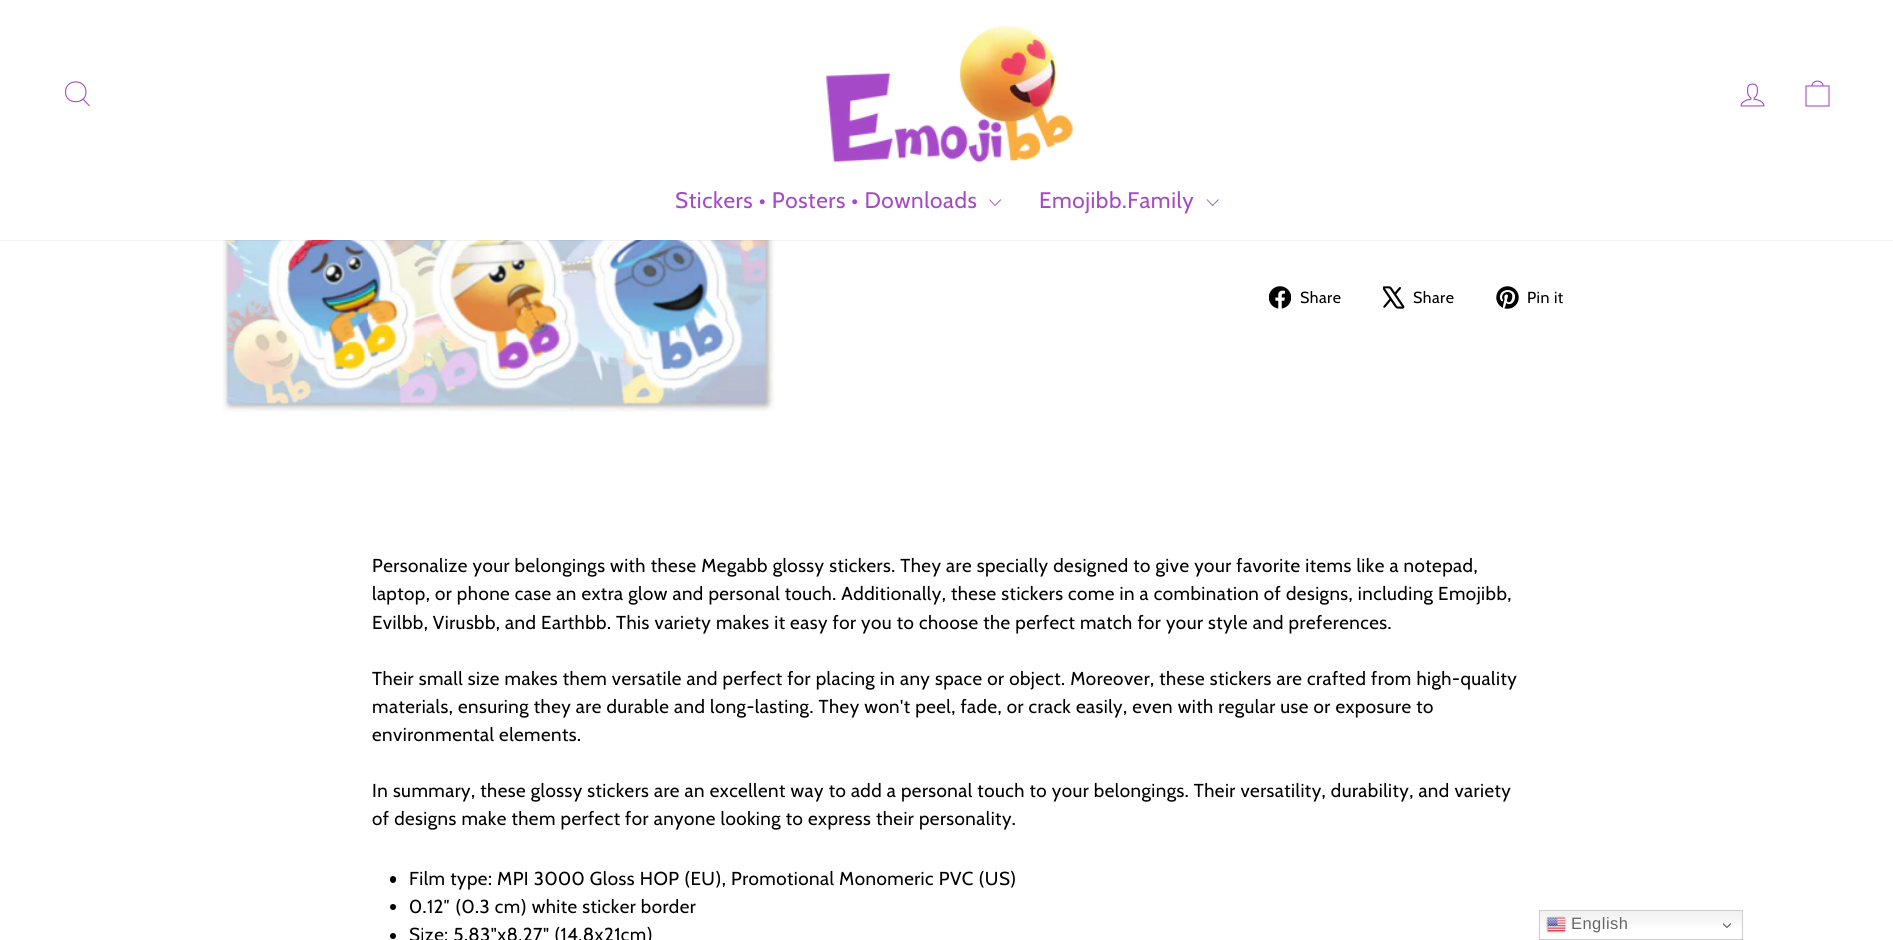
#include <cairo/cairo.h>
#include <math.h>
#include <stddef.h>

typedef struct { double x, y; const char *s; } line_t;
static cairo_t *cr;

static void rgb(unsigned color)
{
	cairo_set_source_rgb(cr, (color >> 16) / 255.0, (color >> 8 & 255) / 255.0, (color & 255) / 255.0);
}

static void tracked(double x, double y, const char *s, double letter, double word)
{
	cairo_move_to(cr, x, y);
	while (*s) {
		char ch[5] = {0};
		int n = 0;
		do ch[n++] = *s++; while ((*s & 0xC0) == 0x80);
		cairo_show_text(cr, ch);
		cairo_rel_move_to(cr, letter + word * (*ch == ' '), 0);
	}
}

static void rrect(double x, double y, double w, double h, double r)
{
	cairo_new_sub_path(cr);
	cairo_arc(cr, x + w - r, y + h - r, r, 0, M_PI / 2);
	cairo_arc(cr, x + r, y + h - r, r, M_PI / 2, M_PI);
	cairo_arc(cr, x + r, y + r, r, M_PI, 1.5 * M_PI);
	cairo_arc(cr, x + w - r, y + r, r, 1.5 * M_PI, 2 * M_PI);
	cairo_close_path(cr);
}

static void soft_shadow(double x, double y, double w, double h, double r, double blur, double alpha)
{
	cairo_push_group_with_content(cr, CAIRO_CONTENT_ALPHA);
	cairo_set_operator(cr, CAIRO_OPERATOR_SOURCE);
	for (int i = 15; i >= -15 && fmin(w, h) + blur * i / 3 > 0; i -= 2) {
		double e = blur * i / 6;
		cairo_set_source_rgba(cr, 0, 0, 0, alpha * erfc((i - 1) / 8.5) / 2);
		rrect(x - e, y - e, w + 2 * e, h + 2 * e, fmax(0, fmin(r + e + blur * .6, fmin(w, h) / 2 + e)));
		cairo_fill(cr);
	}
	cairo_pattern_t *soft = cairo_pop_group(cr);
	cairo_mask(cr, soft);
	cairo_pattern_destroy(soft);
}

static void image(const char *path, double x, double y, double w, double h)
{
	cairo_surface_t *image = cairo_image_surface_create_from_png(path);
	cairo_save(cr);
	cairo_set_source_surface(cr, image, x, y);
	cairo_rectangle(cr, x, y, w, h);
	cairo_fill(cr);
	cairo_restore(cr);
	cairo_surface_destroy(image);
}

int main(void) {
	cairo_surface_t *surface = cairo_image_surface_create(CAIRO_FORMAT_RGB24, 1893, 940);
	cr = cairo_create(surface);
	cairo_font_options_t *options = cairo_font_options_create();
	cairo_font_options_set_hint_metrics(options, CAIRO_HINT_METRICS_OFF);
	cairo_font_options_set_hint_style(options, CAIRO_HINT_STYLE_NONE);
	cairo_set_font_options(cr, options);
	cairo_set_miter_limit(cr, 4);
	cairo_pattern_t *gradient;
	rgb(0xffffff);
	cairo_paint(cr);
	image("img/3.png", 222, 240, 553, 172);
	rgb(0x000000);
	soft_shadow(0, 0, 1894, 240, 0, 0.5, 0.2);
	rgb(0xffffff);
	cairo_rectangle(cr, 0, 0, 1893, 240);
	cairo_fill(cr);
	cairo_new_path(cr);
	cairo_move_to(cr, 86, 92);
	cairo_curve_to(cr, 86, 105, 65.5, 105, 65.5, 92);
	cairo_curve_to(cr, 65.5, 78.5, 86, 78.5, 86, 92);
	cairo_close_path(cr);
	cairo_move_to(cr, 89.5, 106);
	cairo_line_to(cr, 83, 99);
	rgb(0xa54ac4);
	cairo_set_line_width(cr, 1.1);
	cairo_stroke(cr);
	image("img/1.png", 826, 25, 248, 138);
	image("img/2.png", 1740, 83, 25, 24);
	cairo_new_path(cr);
	cairo_move_to(cr, 1806, 86);
	cairo_line_to(cr, 1829, 86);
	cairo_line_to(cr, 1829, 106);
	cairo_line_to(cr, 1806, 106);
	cairo_close_path(cr);
	cairo_move_to(cr, 1812, 86);
	cairo_curve_to(cr, 1812, 79.5, 1823, 79.5, 1823, 86);
	cairo_stroke(cr);
	cairo_new_path(cr);
	cairo_move_to(cr, 989.5, 199.5);
	cairo_line_to(cr, 995, 205.5);
	cairo_line_to(cr, 1001, 199.5);
	cairo_set_line_width(cr, 0.9);
	cairo_stroke(cr);
	cairo_new_path(cr);
	cairo_move_to(cr, 1207, 199.5);
	cairo_line_to(cr, 1212.5, 205.5);
	cairo_line_to(cr, 1218.5, 199.5);
	cairo_stroke(cr);
	image("img/4.png", 1269, 286, 22, 23);
	image("img/5.png", 1383, 286, 22, 23);
	image("img/6.png", 1496, 286, 23, 23);
	rgb(0x000000);
	rrect(390, 876, 6, 7, 3);
	cairo_fill(cr);
	cairo_arc(cr, 393, 907, 3, 0, 2 * M_PI);
	cairo_fill(cr);
	cairo_arc(cr, 393, 936, 3, 0, 2 * M_PI);
	cairo_fill(cr);
	gradient = cairo_pattern_create_linear(1641, 910, 1641, 940);
	cairo_pattern_add_color_stop_rgba(gradient, 0, 0.937, 0.937, 0.937, 1);
	cairo_pattern_add_color_stop_rgba(gradient, 0.7, 1, 1, 1, 1);
	cairo_set_source(cr, gradient);
	cairo_pattern_destroy(gradient);
	cairo_rectangle(cr, 1540, 911, 202, 17);
	cairo_fill(cr);
	cairo_rectangle(cr, 1539.5, 910.5, 203, 29);
	rgb(0xcccccc);
	cairo_set_line_width(cr, 1);
	cairo_stroke(cr);
	image("img/7.png", 1546, 916, 21, 18);
	image("img/8.png", 1723, 923, 8, 6);
	cairo_select_font_face(cr, "Cabin", CAIRO_FONT_SLANT_NORMAL, CAIRO_FONT_WEIGHT_NORMAL);
	cairo_set_font_size(cr, 22.5);
	rgb(0xa54ac4);
	tracked(675, 208, "Stickers • Posters • Downloads", 0.55, 0);
	tracked(1039, 208, "Emojibb.Family", 0.55, 0);
	cairo_set_font_size(cr, 16);
	rgb(0x000000);
	{
		static const line_t items[] = {
			{1300, 303, "Share"},
			{1413, 303, "Share"},
			{1527, 303, "Pin it"},
		};
		for (size_t i = 0; i < sizeof items / sizeof *items; i++) {
			tracked(items[i].x, items[i].y, items[i].s, 0.47, 0);
		}
	}
	cairo_set_font_size(cr, 18.75);
	{
		static const line_t items[] = {
			{372, 572, "Personalize your belongings with these Megabb glossy stickers. They are specially designed to give your favorite items like a notepad,"},
			{372, 600, "laptop, or phone case an extra glow and personal touch. Additionally, these stickers come in a combination of designs, including Emojibb,"},
			{372, 629, "Evilbb, Virusbb, and Earthbb. This variety makes it easy for you to choose the perfect match for your style and preferences."},
			{372, 685, "Their small size makes them versatile and perfect for placing in any space or object. Moreover, these stickers are crafted from high-quality"},
			{372, 713, "materials, ensuring they are durable and long-lasting. They won't peel, fade, or crack easily, even with regular use or exposure to"},
			{372, 741, "environmental elements."},
			{372, 797, "In summary, these glossy stickers are an excellent way to add a personal touch to your belongings. Their versatility, durability, and variety"},
			{372, 825, "of designs make them perfect for anyone looking to express their personality."},
			{409, 885, "Film type: MPI 3000 Gloss HOP (EU), Promotional Monomeric PVC (US)"},
			{409, 913, "0.12″ (0.3 cm) white sticker border"},
			{409, 941, "Size: 5.83\"x8.27\" (14.8x21cm)"},
		};
		for (size_t i = 0; i < sizeof items / sizeof *items; i++) {
			tracked(items[i].x, items[i].y, items[i].s, 0.47, 0);
		}
	}
	cairo_select_font_face(cr, "Liberation Sans", CAIRO_FONT_SLANT_NORMAL, CAIRO_FONT_WEIGHT_NORMAL);
	cairo_set_font_size(cr, 16.5);
	rgb(0x666666);
	tracked(1571, 929, "English", 0.47, 0);
	cairo_surface_write_to_png(surface, "page.png");
	cairo_font_options_destroy(options);
	cairo_destroy(cr);
	cairo_surface_destroy(surface);
	return 0;
}
